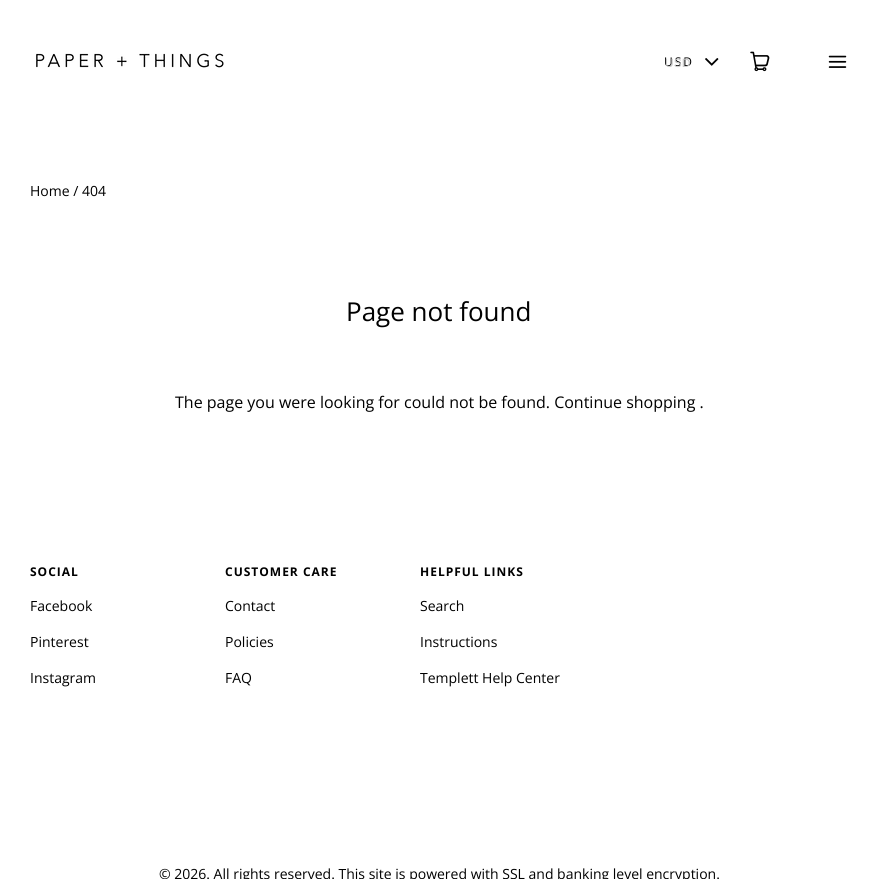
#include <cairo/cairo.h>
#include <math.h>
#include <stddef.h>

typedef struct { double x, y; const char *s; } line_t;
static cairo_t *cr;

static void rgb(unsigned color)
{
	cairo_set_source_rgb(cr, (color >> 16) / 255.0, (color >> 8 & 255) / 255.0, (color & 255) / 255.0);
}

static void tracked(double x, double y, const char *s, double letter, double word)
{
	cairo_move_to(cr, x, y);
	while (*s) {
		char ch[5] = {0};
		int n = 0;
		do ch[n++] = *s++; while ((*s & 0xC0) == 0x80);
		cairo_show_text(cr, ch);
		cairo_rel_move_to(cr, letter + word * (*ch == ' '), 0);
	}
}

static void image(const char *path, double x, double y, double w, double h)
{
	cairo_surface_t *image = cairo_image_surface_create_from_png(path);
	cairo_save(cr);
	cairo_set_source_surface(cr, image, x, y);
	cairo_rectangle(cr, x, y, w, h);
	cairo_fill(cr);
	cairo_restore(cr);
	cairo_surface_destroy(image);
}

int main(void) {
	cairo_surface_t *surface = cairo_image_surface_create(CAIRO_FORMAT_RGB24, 878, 879);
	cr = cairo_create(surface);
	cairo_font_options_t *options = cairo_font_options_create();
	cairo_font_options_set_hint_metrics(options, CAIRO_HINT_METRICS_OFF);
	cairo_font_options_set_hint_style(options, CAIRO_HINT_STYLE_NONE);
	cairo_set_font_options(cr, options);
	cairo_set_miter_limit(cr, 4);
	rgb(0xffffff);
	cairo_paint(cr);
	image("img/1.png", 36, 53, 188, 15);
	image("img/2.png", 705, 58, 14, 8);
	image("img/3.png", 750, 51, 20, 21);
	image("img/4.png", 828, 55, 19, 13);
	cairo_select_font_face(cr, "Open Sans", CAIRO_FONT_SLANT_NORMAL, CAIRO_FONT_WEIGHT_NORMAL);
	cairo_set_font_size(cr, 12);
	rgb(0x000000);
	tracked(664, 66, "USD", 2, 0);
	cairo_select_font_face(cr, "Liberation Sans", CAIRO_FONT_SLANT_NORMAL, CAIRO_FONT_WEIGHT_NORMAL);
	rgb(0xc9c9c9);
	cairo_move_to(cr, 665, 67);
	cairo_show_text(cr, "USD");
	cairo_select_font_face(cr, "Open Sans", CAIRO_FONT_SLANT_NORMAL, CAIRO_FONT_WEIGHT_NORMAL);
	cairo_set_font_size(cr, 14);
	rgb(0x000000);
	cairo_move_to(cr, 30, 196);
	cairo_show_text(cr, "Home / 404");
	cairo_set_font_size(cr, 26);
	cairo_move_to(cr, 346, 321);
	cairo_show_text(cr, "Page not found");
	cairo_set_font_size(cr, 16);
	cairo_move_to(cr, 175, 408);
	cairo_show_text(cr, "The page you were looking for could not be found. Continue shopping .");
	cairo_select_font_face(cr, "Open Sans", CAIRO_FONT_SLANT_NORMAL, CAIRO_FONT_WEIGHT_BOLD);
	cairo_set_font_size(cr, 12);
	tracked(30, 576, "SOCIAL", 1, 0);
	cairo_select_font_face(cr, "Open Sans", CAIRO_FONT_SLANT_NORMAL, CAIRO_FONT_WEIGHT_NORMAL);
	cairo_set_font_size(cr, 14);
	{
		static const line_t items[] = {
			{30, 611, "Facebook"},
			{30, 647, "Pinterest"},
			{30, 683, "Instagram"},
		};
		for (size_t i = 0; i < sizeof items / sizeof *items; i++) {
			cairo_move_to(cr, items[i].x, items[i].y);
			cairo_show_text(cr, items[i].s);
		}
	}
	cairo_select_font_face(cr, "Open Sans", CAIRO_FONT_SLANT_NORMAL, CAIRO_FONT_WEIGHT_BOLD);
	cairo_set_font_size(cr, 12);
	tracked(225, 576, "CUSTOMER CARE", 1, 0);
	cairo_select_font_face(cr, "Open Sans", CAIRO_FONT_SLANT_NORMAL, CAIRO_FONT_WEIGHT_NORMAL);
	cairo_set_font_size(cr, 14);
	{
		static const line_t items[] = {
			{225, 611, "Contact"},
			{225, 647, "Policies"},
			{225, 683, "FAQ"},
		};
		for (size_t i = 0; i < sizeof items / sizeof *items; i++) {
			cairo_move_to(cr, items[i].x, items[i].y);
			cairo_show_text(cr, items[i].s);
		}
	}
	cairo_select_font_face(cr, "Open Sans", CAIRO_FONT_SLANT_NORMAL, CAIRO_FONT_WEIGHT_BOLD);
	cairo_set_font_size(cr, 12);
	tracked(420, 576, "HELPFUL LINKS", 1, 0);
	cairo_select_font_face(cr, "Open Sans", CAIRO_FONT_SLANT_NORMAL, CAIRO_FONT_WEIGHT_NORMAL);
	cairo_set_font_size(cr, 14);
	{
		static const line_t items[] = {
			{420, 611, "Search"},
			{420, 647, "Instructions"},
			{420, 683, "Templett Help Center"},
			{159, 879, "© 2026. All rights reserved. This site is powered with SSL and banking level encryption."},
		};
		for (size_t i = 0; i < sizeof items / sizeof *items; i++) {
			cairo_move_to(cr, items[i].x, items[i].y);
			cairo_show_text(cr, items[i].s);
		}
	}
	cairo_surface_write_to_png(surface, "page.png");
	cairo_font_options_destroy(options);
	cairo_destroy(cr);
	cairo_surface_destroy(surface);
	return 0;
}
